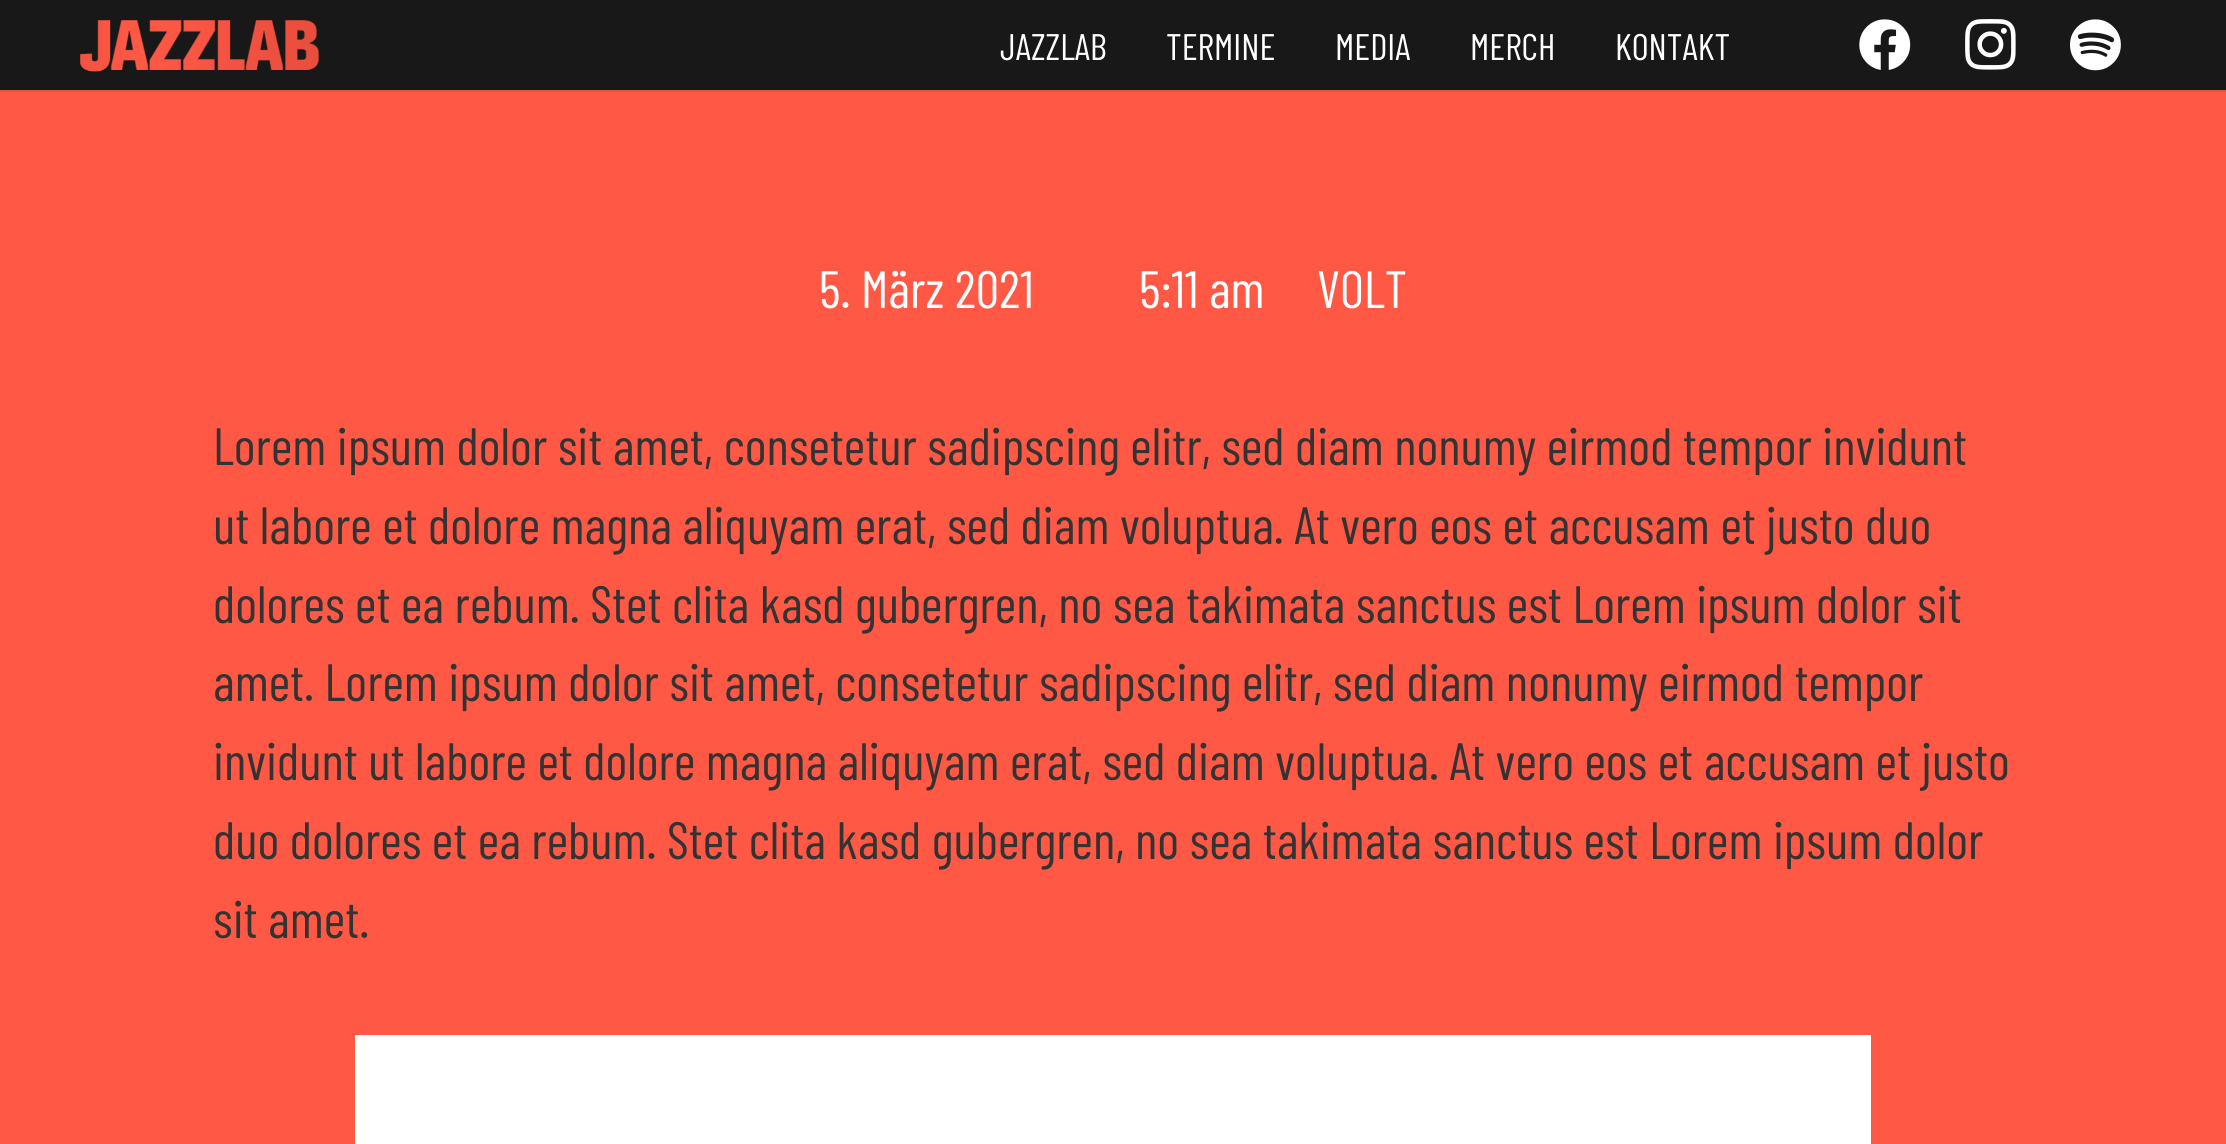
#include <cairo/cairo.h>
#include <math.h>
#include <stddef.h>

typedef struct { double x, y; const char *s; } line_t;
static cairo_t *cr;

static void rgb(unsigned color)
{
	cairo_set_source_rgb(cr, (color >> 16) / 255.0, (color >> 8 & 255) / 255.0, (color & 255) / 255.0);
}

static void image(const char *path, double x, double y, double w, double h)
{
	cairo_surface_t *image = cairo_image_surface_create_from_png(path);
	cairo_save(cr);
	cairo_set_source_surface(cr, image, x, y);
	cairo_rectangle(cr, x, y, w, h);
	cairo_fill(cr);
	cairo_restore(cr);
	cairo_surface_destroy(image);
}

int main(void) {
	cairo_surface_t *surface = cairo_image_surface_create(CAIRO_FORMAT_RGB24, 2226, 1144);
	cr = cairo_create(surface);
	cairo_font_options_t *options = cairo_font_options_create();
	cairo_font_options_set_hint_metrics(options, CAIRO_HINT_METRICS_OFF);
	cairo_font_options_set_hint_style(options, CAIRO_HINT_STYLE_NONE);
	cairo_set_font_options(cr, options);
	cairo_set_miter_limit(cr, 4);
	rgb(0xff5946);
	cairo_paint(cr);
	rgb(0xeb5240);
	cairo_rectangle(cr, 0, 90, 2226, 2);
	cairo_fill(cr);
	rgb(0x181818);
	cairo_rectangle(cr, 0, 0, 2226, 90);
	cairo_fill(cr);
	image("img/1.png", 80, 20, 239, 52);
	image("img/2.png", 1859, 19, 52, 51);
	image("img/3.png", 1965, 19, 51, 51);
	image("img/4.png", 2070, 19, 51, 52);
	rgb(0xffffff);
	cairo_rectangle(cr, 355, 1035, 1516, 109);
	cairo_fill(cr);
	cairo_select_font_face(cr, "Barlow Condensed", CAIRO_FONT_SLANT_NORMAL, CAIRO_FONT_WEIGHT_NORMAL);
	cairo_set_font_size(cr, 37);
	{
		static const line_t items[] = {
			{1000, 60, "JAZZLAB"},
			{1166, 60, "TERMINE"},
			{1335, 60, "MEDIA"},
			{1470, 60, "MERCH"},
			{1615, 60, "KONTAKT"},
		};
		for (size_t i = 0; i < sizeof items / sizeof *items; i++) {
			cairo_move_to(cr, items[i].x, items[i].y);
			cairo_show_text(cr, items[i].s);
		}
	}
	cairo_set_font_size(cr, 52.5);
	{
		static const line_t items[] = {
			{819, 308, "5. März 2021"},
			{1139, 308, "5:11 am"},
			{1317, 308, "VOLT"},
		};
		for (size_t i = 0; i < sizeof items / sizeof *items; i++) {
			cairo_move_to(cr, items[i].x, items[i].y);
			cairo_show_text(cr, items[i].s);
		}
	}
	rgb(0x333333);
	{
		static const line_t items[] = {
			{213, 465, "Lorem ipsum dolor sit amet, consetetur sadipscing elitr, sed diam nonumy eirmod tempor invidunt"},
			{213, 544, "ut labore et dolore magna aliquyam erat, sed diam voluptua. At vero eos et accusam et justo duo"},
			{213, 623, "dolores et ea rebum. Stet clita kasd gubergren, no sea takimata sanctus est Lorem ipsum dolor sit"},
			{213, 701, "amet. Lorem ipsum dolor sit amet, consetetur sadipscing elitr, sed diam nonumy eirmod tempor"},
			{213, 780, "invidunt ut labore et dolore magna aliquyam erat, sed diam voluptua. At vero eos et accusam et justo"},
			{213, 859, "duo dolores et ea rebum. Stet clita kasd gubergren, no sea takimata sanctus est Lorem ipsum dolor"},
			{213, 938, "sit amet."},
		};
		for (size_t i = 0; i < sizeof items / sizeof *items; i++) {
			cairo_move_to(cr, items[i].x, items[i].y);
			cairo_show_text(cr, items[i].s);
		}
	}
	cairo_surface_write_to_png(surface, "page.png");
	cairo_font_options_destroy(options);
	cairo_destroy(cr);
	cairo_surface_destroy(surface);
	return 0;
}
